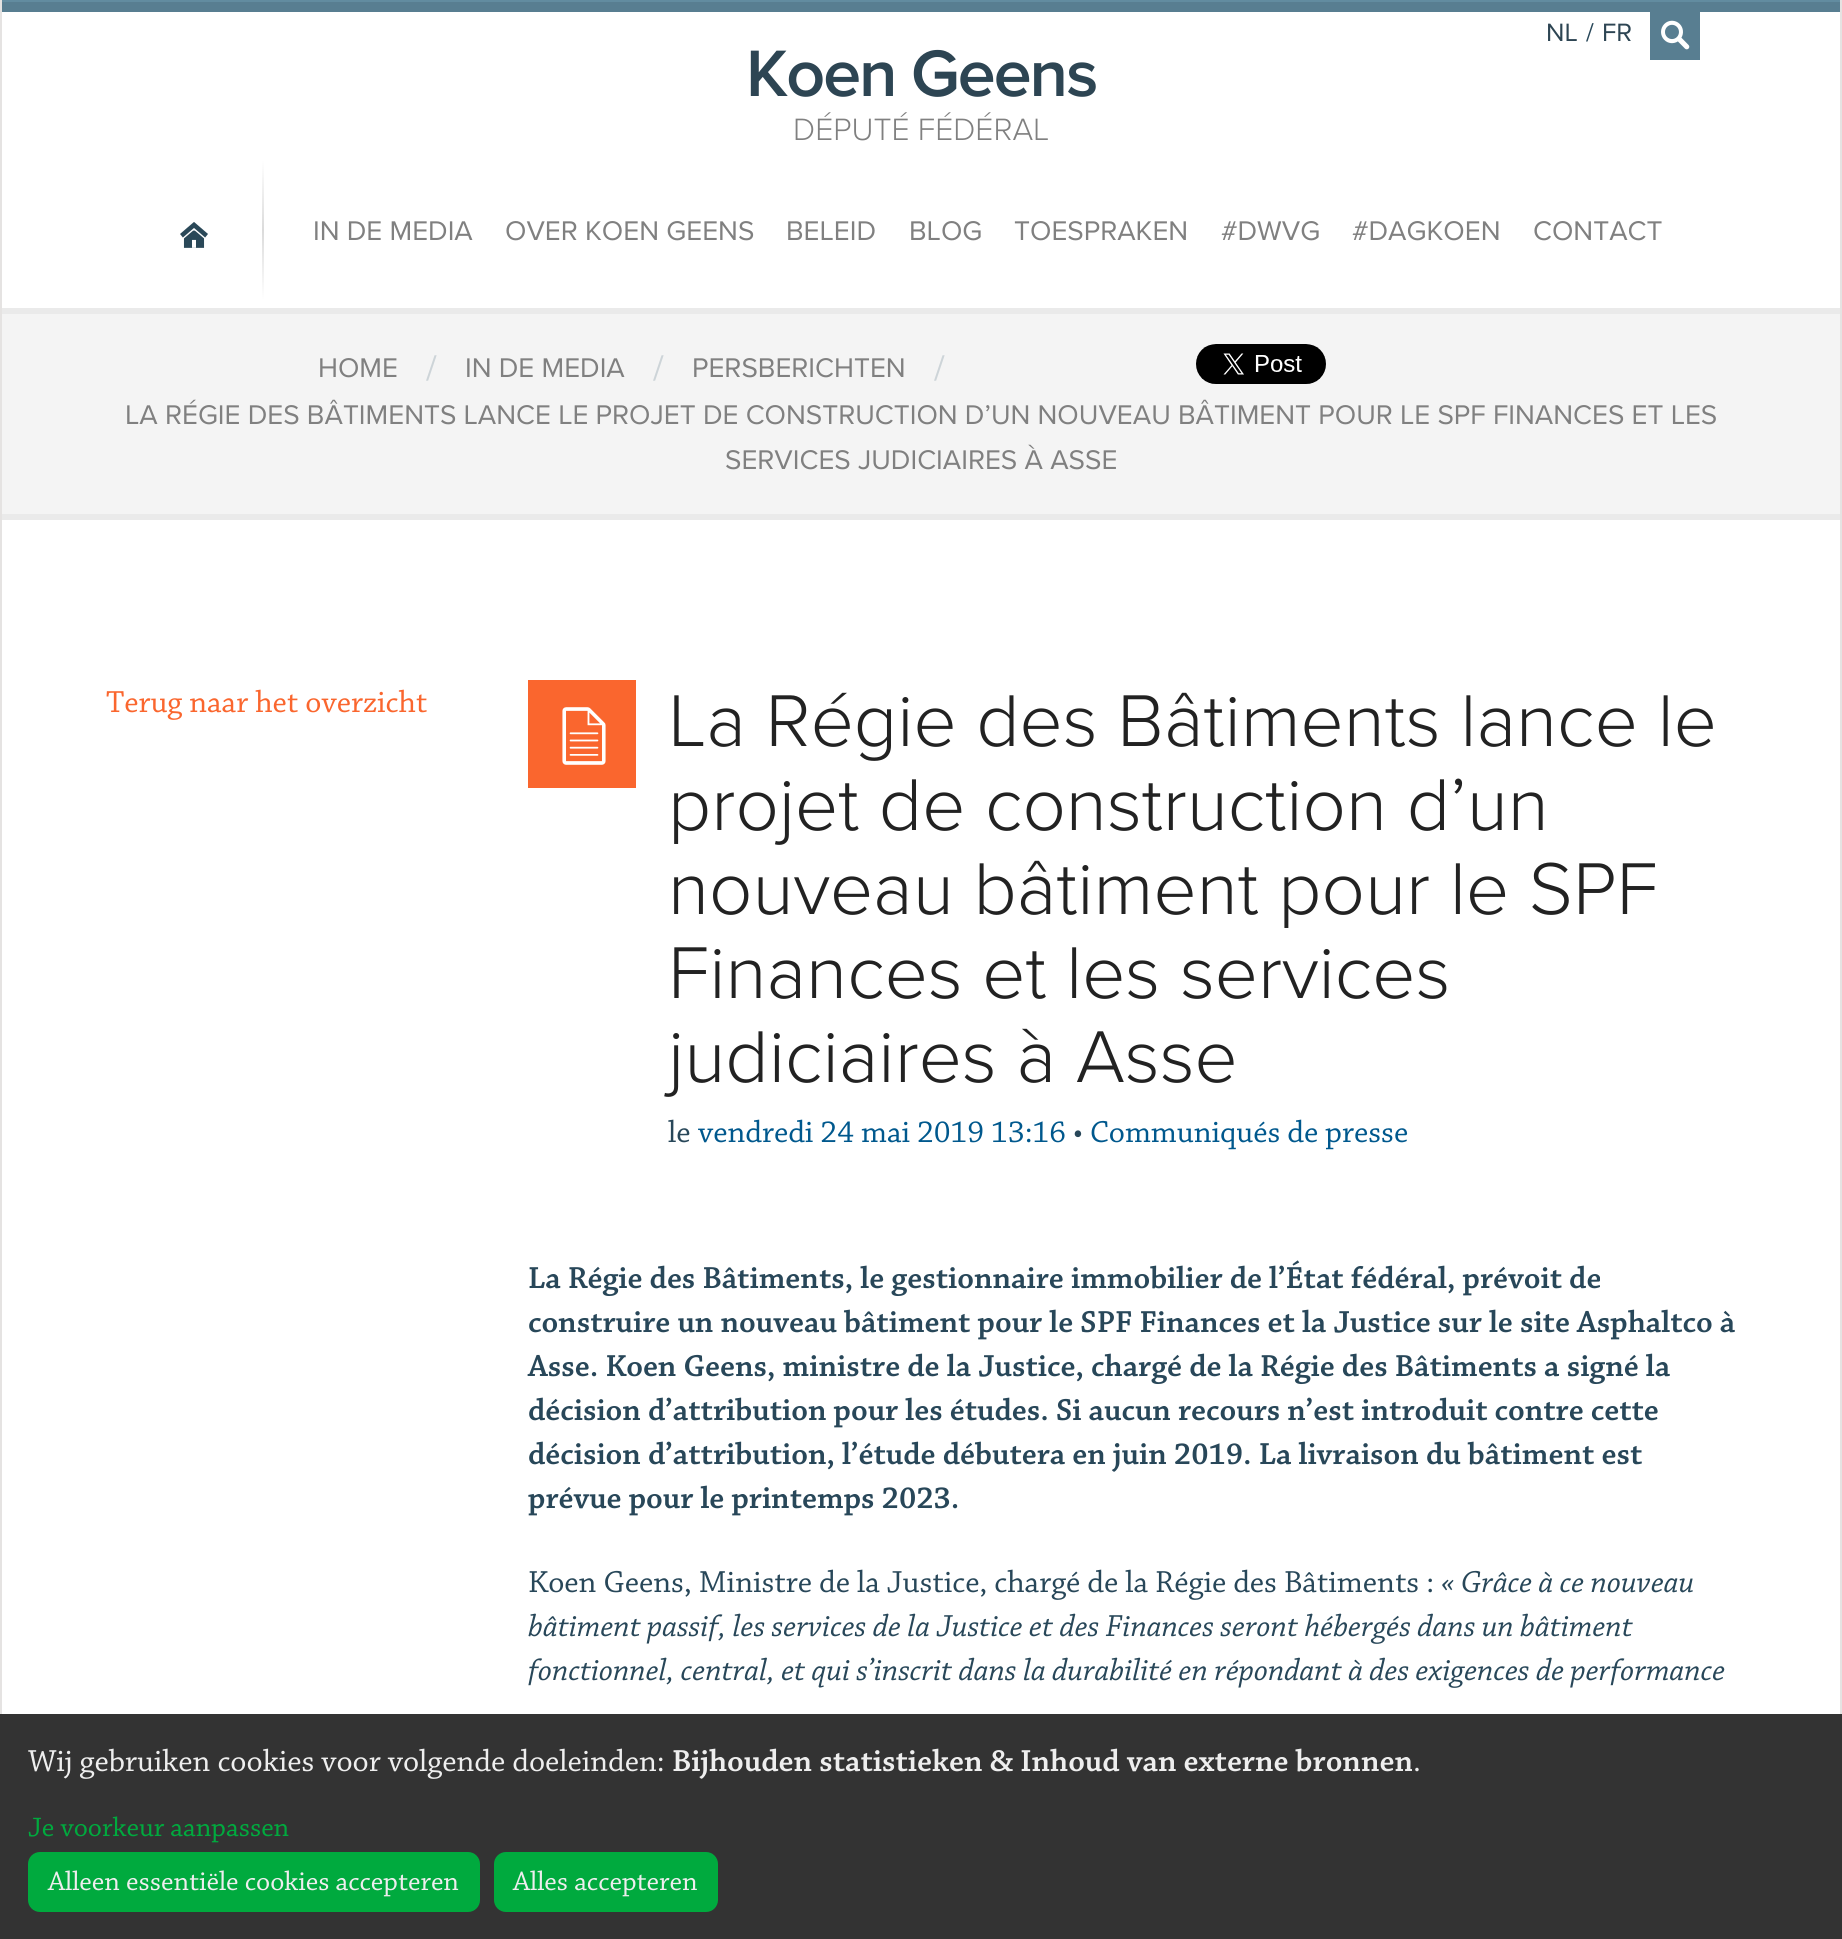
#include <cairo/cairo.h>
#include <math.h>
#include <stddef.h>

typedef struct { double x, y; const char *s; } line_t;
typedef struct { double x, y, w, h; unsigned color; } box_t;
static cairo_t *cr;

static void rgb(unsigned color)
{
	cairo_set_source_rgb(cr, (color >> 16) / 255.0, (color >> 8 & 255) / 255.0, (color & 255) / 255.0);
}

static void tracked(double x, double y, const char *s, double letter, double word)
{
	cairo_move_to(cr, x, y);
	while (*s) {
		char ch[5] = {0};
		int n = 0;
		do ch[n++] = *s++; while ((*s & 0xC0) == 0x80);
		cairo_show_text(cr, ch);
		cairo_rel_move_to(cr, letter + word * (*ch == ' '), 0);
	}
}

static void rrect(double x, double y, double w, double h, double r)
{
	cairo_new_sub_path(cr);
	cairo_arc(cr, x + w - r, y + h - r, r, 0, M_PI / 2);
	cairo_arc(cr, x + r, y + h - r, r, M_PI / 2, M_PI);
	cairo_arc(cr, x + r, y + r, r, M_PI, 1.5 * M_PI);
	cairo_arc(cr, x + w - r, y + r, r, 1.5 * M_PI, 2 * M_PI);
	cairo_close_path(cr);
}

static void image(const char *path, double x, double y, double w, double h)
{
	cairo_surface_t *image = cairo_image_surface_create_from_png(path);
	cairo_save(cr);
	cairo_set_source_surface(cr, image, x, y);
	cairo_rectangle(cr, x, y, w, h);
	cairo_fill(cr);
	cairo_restore(cr);
	cairo_surface_destroy(image);
}

int main(void) {
	cairo_surface_t *surface = cairo_image_surface_create(CAIRO_FORMAT_RGB24, 1842, 1939);
	cr = cairo_create(surface);
	cairo_font_options_t *options = cairo_font_options_create();
	cairo_font_options_set_hint_metrics(options, CAIRO_HINT_METRICS_OFF);
	cairo_font_options_set_hint_style(options, CAIRO_HINT_STYLE_NONE);
	cairo_set_font_options(cr, options);
	cairo_set_miter_limit(cr, 4);
	cairo_pattern_t *gradient;
	rgb(0xffffff);
	cairo_paint(cr);
	{
		static const box_t items[] = {
			{1840, 0, 2, 1714, 0xe5e3e2},
			{0, 0, 2, 1714, 0xe5e3e2},
			{2, 0, 1838, 2, 0x628ca0},
			{2, 2, 1838, 10, 0x587e91},
			{1650, 12, 50, 48, 0x587e91},
		};
		for (size_t i = 0; i < sizeof items / sizeof *items; i++) {
			rgb(items[i].color);
			cairo_rectangle(cr, items[i].x, items[i].y, items[i].w, items[i].h);
			cairo_fill(cr);
		}
	}
	image("img/1.png", 1661, 20, 29, 30);
	image("img/2.png", 180, 222, 28, 26);
	gradient = cairo_pattern_create_linear(263, 160, 263, 300);
	cairo_pattern_add_color_stop_rgba(gradient, 0, 1, 1, 1, 1);
	cairo_pattern_add_color_stop_rgba(gradient, 0.5, 0.859, 0.859, 0.859, 1);
	cairo_pattern_add_color_stop_rgba(gradient, 1, 1, 1, 1, 1);
	cairo_set_source(cr, gradient);
	cairo_pattern_destroy(gradient);
	cairo_rectangle(cr, 262, 160, 2, 140);
	cairo_fill(cr);
	{
		static const box_t items[] = {
			{2, 314, 1838, 200, 0xf4f4f4},
			{2, 308, 1838, 6, 0xeaeaea},
			{2, 514, 1838, 6, 0xeaeaea},
		};
		for (size_t i = 0; i < sizeof items / sizeof *items; i++) {
			rgb(items[i].color);
			cairo_rectangle(cr, items[i].x, items[i].y, items[i].w, items[i].h);
			cairo_fill(cr);
		}
	}
	image("img/3.png", 1196, 344, 130, 40);
	rgb(0xfa662e);
	cairo_rectangle(cr, 528, 680, 108, 108);
	cairo_fill(cr);
	image("img/4.png", 562, 707, 44, 58);
	rgb(0x333333);
	cairo_rectangle(cr, 0, 1714, 1842, 225);
	cairo_fill(cr);
	rgb(0x00aa3e);
	rrect(28, 1852, 452, 60, 12);
	cairo_fill(cr);
	rrect(494, 1852, 224, 60, 12);
	cairo_fill(cr);
	cairo_select_font_face(cr, "Proxima Nova", CAIRO_FONT_SLANT_NORMAL, CAIRO_FONT_WEIGHT_NORMAL);
	cairo_set_font_size(cr, 26);
	rgb(0x2d4553);
	cairo_move_to(cr, 1546, 41);
	cairo_show_text(cr, "NL");
	rgb(0x284759);
	cairo_move_to(cr, 1586, 41);
	cairo_show_text(cr, "/");
	rgb(0x2d4553);
	cairo_move_to(cr, 1602, 41);
	cairo_show_text(cr, "FR");
	cairo_set_font_size(cr, 28);
	rgb(0x808080);
	{
		static const line_t items[] = {
			{313, 240, "IN DE MEDIA"},
			{505, 240, "OVER KOEN GEENS"},
			{786, 240, "BELEID"},
			{909, 240, "BLOG"},
			{1014, 240, "TOESPRAKEN"},
			{1221, 240, "#DWVG"},
			{1352, 240, "#DAGKOEN"},
			{1533, 240, "CONTACT"},
		};
		for (size_t i = 0; i < sizeof items / sizeof *items; i++) {
			cairo_move_to(cr, items[i].x, items[i].y);
			cairo_show_text(cr, items[i].s);
		}
	}
	cairo_select_font_face(cr, "Proxima Nova SemiBold", CAIRO_FONT_SLANT_NORMAL, CAIRO_FONT_WEIGHT_NORMAL);
	cairo_set_font_size(cr, 68);
	rgb(0x2d4553);
	tracked(746, 96, "Koen Geens", -2, 0);
	cairo_select_font_face(cr, "Proxima Nova Light", CAIRO_FONT_SLANT_NORMAL, CAIRO_FONT_WEIGHT_NORMAL);
	cairo_set_font_size(cr, 32);
	rgb(0x808080);
	cairo_move_to(cr, 793, 140);
	cairo_show_text(cr, "DÉPUTÉ FÉDÉRAL");
	cairo_select_font_face(cr, "Proxima Nova", CAIRO_FONT_SLANT_NORMAL, CAIRO_FONT_WEIGHT_NORMAL);
	cairo_set_font_size(cr, 28);
	cairo_move_to(cr, 318, 377);
	cairo_show_text(cr, "HOME");
	cairo_set_font_size(cr, 36);
	rgb(0xcdd4d8);
	cairo_move_to(cr, 426, 380);
	cairo_show_text(cr, "/");
	cairo_set_font_size(cr, 28);
	rgb(0x808080);
	cairo_move_to(cr, 465, 377);
	cairo_show_text(cr, "IN DE MEDIA");
	cairo_set_font_size(cr, 36);
	rgb(0xcdd4d8);
	cairo_move_to(cr, 653, 380);
	cairo_show_text(cr, "/");
	cairo_set_font_size(cr, 28);
	rgb(0x808080);
	cairo_move_to(cr, 692, 377);
	cairo_show_text(cr, "PERSBERICHTEN");
	cairo_set_font_size(cr, 36);
	rgb(0xcdd4d8);
	cairo_move_to(cr, 934, 380);
	cairo_show_text(cr, "/");
	cairo_set_font_size(cr, 28);
	rgb(0x808080);
	cairo_move_to(cr, 125, 424);
	cairo_show_text(cr, "LA RÉGIE DES BÂTIMENTS LANCE LE PROJET DE CONSTRUCTION D’UN NOUVEAU BÂTIMENT POUR LE SPF FINANCES ET LES");
	cairo_move_to(cr, 725, 469);
	cairo_show_text(cr, "SERVICES JUDICIAIRES À ASSE");
	cairo_select_font_face(cr, "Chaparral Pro", CAIRO_FONT_SLANT_NORMAL, CAIRO_FONT_WEIGHT_NORMAL);
	cairo_set_font_size(cr, 32);
	rgb(0xfa662e);
	cairo_move_to(cr, 106, 712);
	cairo_show_text(cr, "Terug naar het overzicht");
	cairo_select_font_face(cr, "Proxima Nova Light", CAIRO_FONT_SLANT_NORMAL, CAIRO_FONT_WEIGHT_NORMAL);
	cairo_set_font_size(cr, 76);
	rgb(0x222222);
	{
		static const line_t items[] = {
			{668, 746, "La Régie des Bâtiments lance le"},
			{668, 830, "projet de construction d’un"},
			{668, 914, "nouveau bâtiment pour le SPF"},
			{668, 998, "Finances et les services"},
			{668, 1082, "judiciaires à Asse"},
		};
		for (size_t i = 0; i < sizeof items / sizeof *items; i++) {
			cairo_move_to(cr, items[i].x, items[i].y);
			cairo_show_text(cr, items[i].s);
		}
	}
	cairo_select_font_face(cr, "Chaparral Pro", CAIRO_FONT_SLANT_NORMAL, CAIRO_FONT_WEIGHT_NORMAL);
	cairo_set_font_size(cr, 32);
	rgb(0x284759);
	cairo_move_to(cr, 668, 1142);
	cairo_show_text(cr, "le");
	rgb(0x00588d);
	cairo_move_to(cr, 698, 1142);
	cairo_show_text(cr, "vendredi 24 mai 2019 13:16");
	rgb(0x284759);
	cairo_move_to(cr, 1073, 1142);
	cairo_show_text(cr, "•");
	rgb(0x00588d);
	cairo_move_to(cr, 1090, 1142);
	cairo_show_text(cr, "Communiqués de presse");
	cairo_select_font_face(cr, "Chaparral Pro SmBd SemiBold", CAIRO_FONT_SLANT_NORMAL, CAIRO_FONT_WEIGHT_NORMAL);
	rgb(0x284759);
	{
		static const line_t items[] = {
			{528, 1288, "La Régie des Bâtiments, le gestionnaire immobilier de l’État fédéral, prévoit de"},
			{528, 1332, "construire un nouveau bâtiment pour le SPF Finances et la Justice sur le site Asphaltco à"},
			{528, 1376, "Asse. Koen Geens, ministre de la Justice, chargé de la Régie des Bâtiments a signé la"},
			{528, 1420, "décision d’attribution pour les études. Si aucun recours n’est introduit contre cette"},
			{528, 1464, "décision d’attribution, l’étude débutera en juin 2019. La livraison du bâtiment est"},
			{528, 1508, "prévue pour le printemps 2023."},
		};
		for (size_t i = 0; i < sizeof items / sizeof *items; i++) {
			cairo_move_to(cr, items[i].x, items[i].y);
			cairo_show_text(cr, items[i].s);
		}
	}
	cairo_select_font_face(cr, "Chaparral Pro", CAIRO_FONT_SLANT_NORMAL, CAIRO_FONT_WEIGHT_NORMAL);
	cairo_move_to(cr, 528, 1592);
	cairo_show_text(cr, "Koen Geens, Ministre de la Justice, chargé de la Régie des Bâtiments :");
	cairo_select_font_face(cr, "Chaparral Pro", CAIRO_FONT_SLANT_ITALIC, CAIRO_FONT_WEIGHT_NORMAL);
	{
		static const line_t items[] = {
			{1441, 1592, "« Grâce à ce nouveau"},
			{528, 1636, "bâtiment passif, les services de la Justice et des Finances seront hébergés dans un bâtiment"},
			{528, 1680, "fonctionnel, central, et qui s’inscrit dans la durabilité en répondant à des exigences de performance"},
		};
		for (size_t i = 0; i < sizeof items / sizeof *items; i++) {
			cairo_move_to(cr, items[i].x, items[i].y);
			cairo_show_text(cr, items[i].s);
		}
	}
	cairo_select_font_face(cr, "Chaparral Pro", CAIRO_FONT_SLANT_NORMAL, CAIRO_FONT_WEIGHT_NORMAL);
	rgb(0xeeeeee);
	cairo_move_to(cr, 28, 1771);
	cairo_show_text(cr, "Wij gebruiken cookies voor volgende doeleinden:");
	cairo_select_font_face(cr, "Chaparral Pro SmBd SemiBold", CAIRO_FONT_SLANT_NORMAL, CAIRO_FONT_WEIGHT_NORMAL);
	cairo_move_to(cr, 672, 1771);
	cairo_show_text(cr, "Bijhouden statistieken & Inhoud van externe bronnen");
	cairo_select_font_face(cr, "Chaparral Pro", CAIRO_FONT_SLANT_NORMAL, CAIRO_FONT_WEIGHT_NORMAL);
	cairo_move_to(cr, 1413, 1771);
	cairo_show_text(cr, ".");
	cairo_set_font_size(cr, 28);
	rgb(0x00aa3e);
	cairo_move_to(cr, 28, 1836);
	cairo_show_text(cr, "Je voorkeur aanpassen");
	rgb(0xeeeeee);
	cairo_move_to(cr, 48, 1890);
	cairo_show_text(cr, "Alleen essentiële cookies accepteren");
	cairo_move_to(cr, 513, 1890);
	cairo_show_text(cr, "Alles accepteren");
	cairo_surface_write_to_png(surface, "page.png");
	cairo_font_options_destroy(options);
	cairo_destroy(cr);
	cairo_surface_destroy(surface);
	return 0;
}
